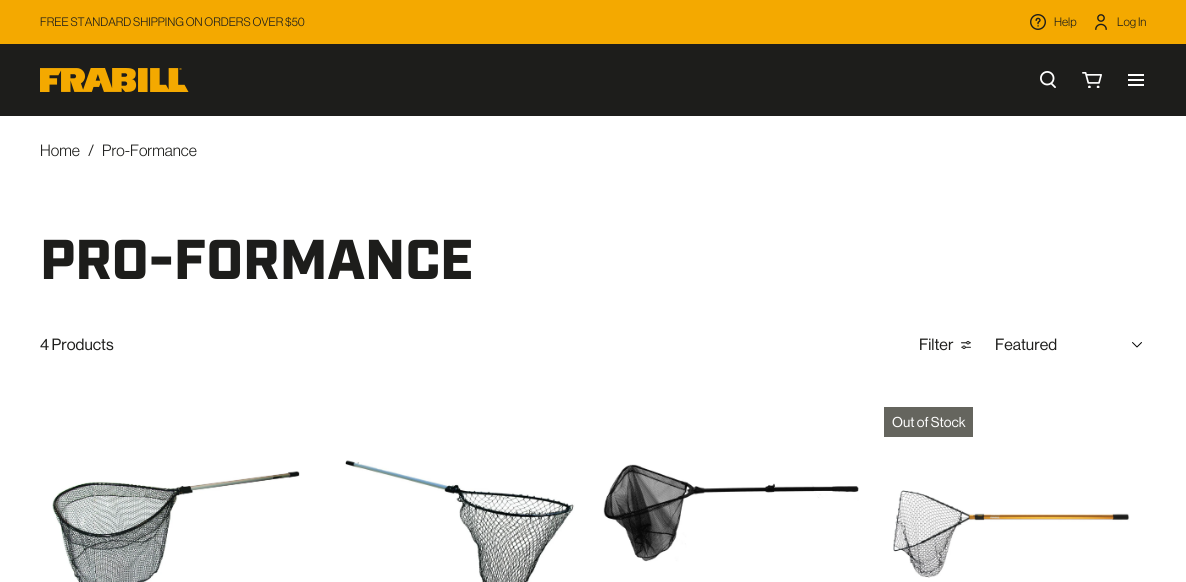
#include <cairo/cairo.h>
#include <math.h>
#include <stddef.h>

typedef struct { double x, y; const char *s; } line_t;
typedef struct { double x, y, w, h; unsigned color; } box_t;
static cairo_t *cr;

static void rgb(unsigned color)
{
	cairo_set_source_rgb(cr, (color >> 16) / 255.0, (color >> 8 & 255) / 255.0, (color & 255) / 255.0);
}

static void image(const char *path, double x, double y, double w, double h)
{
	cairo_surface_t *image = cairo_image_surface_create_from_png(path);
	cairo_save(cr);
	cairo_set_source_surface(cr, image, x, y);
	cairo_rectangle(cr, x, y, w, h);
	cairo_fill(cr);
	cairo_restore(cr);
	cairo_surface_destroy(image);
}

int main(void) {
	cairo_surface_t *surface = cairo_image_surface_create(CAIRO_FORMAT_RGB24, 1186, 582);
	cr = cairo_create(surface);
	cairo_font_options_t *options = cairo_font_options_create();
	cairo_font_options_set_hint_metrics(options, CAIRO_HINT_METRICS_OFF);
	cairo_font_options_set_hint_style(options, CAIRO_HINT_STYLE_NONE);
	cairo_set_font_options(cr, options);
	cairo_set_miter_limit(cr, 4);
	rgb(0xffffff);
	cairo_paint(cr);
	rgb(0xf4a900);
	cairo_rectangle(cr, 0, 0, 1186, 44);
	cairo_fill(cr);
	image("img/1.png", 1030, 14, 16, 16);
	image("img/2.png", 1095, 14, 12, 16);
	rgb(0x1d1d1b);
	cairo_rectangle(cr, 0, 44, 1186, 72);
	cairo_fill(cr);
	image("img/3.png", 40, 68, 149, 24);
	image("img/4.png", 1040, 71, 16, 17);
	image("img/5.png", 1082, 72, 20, 16);
	{
		static const box_t items[] = {
			{1128, 74, 16, 2, 0xffffff},
			{1128, 79, 16, 2, 0xffffff},
			{1128, 84, 16, 2, 0xffffff},
		};
		for (size_t i = 0; i < sizeof items / sizeof *items; i++) {
			rgb(items[i].color);
			cairo_rectangle(cr, items[i].x, items[i].y, items[i].w, items[i].h);
			cairo_fill(cr);
		}
	}
	image("img/6.png", 961, 341, 10, 8);
	image("img/7.png", 1132, 342, 10, 6);
	rgb(0x65655e);
	cairo_rectangle(cr, 884, 407, 89, 30);
	cairo_fill(cr);
	image("img/8.png", 893, 490, 237, 88);
	image("img/9.png", 52, 471, 248, 111);
	image("img/10.png", 345, 460, 230, 122);
	image("img/11.png", 603, 464, 256, 98);
	cairo_select_font_face(cr, "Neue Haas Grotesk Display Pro", CAIRO_FONT_SLANT_NORMAL, CAIRO_FONT_WEIGHT_NORMAL);
	cairo_set_font_size(cr, 12);
	rgb(0x1d1d1b);
	{
		static const line_t items[] = {
			{40, 26, "FREE STANDARD SHIPPING ON ORDERS OVER $50"},
			{1054, 26, "Help"},
			{1117, 26, "Log In"},
		};
		for (size_t i = 0; i < sizeof items / sizeof *items; i++) {
			cairo_move_to(cr, items[i].x, items[i].y);
			cairo_show_text(cr, items[i].s);
		}
	}
	cairo_set_font_size(cr, 16);
	{
		static const line_t items[] = {
			{40, 156, "Home"},
			{88, 156, "/"},
			{102, 156, "Pro-Formance"},
		};
		for (size_t i = 0; i < sizeof items / sizeof *items; i++) {
			cairo_move_to(cr, items[i].x, items[i].y);
			cairo_show_text(cr, items[i].s);
		}
	}
	cairo_select_font_face(cr, "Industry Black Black", CAIRO_FONT_SLANT_NORMAL, CAIRO_FONT_WEIGHT_NORMAL);
	cairo_set_font_size(cr, 56);
	cairo_move_to(cr, 40, 279);
	cairo_show_text(cr, "PRO-FORMANCE");
	cairo_select_font_face(cr, "Neue Haas Grotesk Display Pro Medium", CAIRO_FONT_SLANT_NORMAL, CAIRO_FONT_WEIGHT_NORMAL);
	cairo_set_font_size(cr, 16);
	{
		static const line_t items[] = {
			{40, 350, "4 Products"},
			{919, 350, "Filter"},
			{995, 350, "Featured"},
		};
		for (size_t i = 0; i < sizeof items / sizeof *items; i++) {
			cairo_move_to(cr, items[i].x, items[i].y);
			cairo_show_text(cr, items[i].s);
		}
	}
	cairo_set_font_size(cr, 14);
	rgb(0xffffff);
	cairo_move_to(cr, 892, 427);
	cairo_show_text(cr, "Out of Stock");
	cairo_surface_write_to_png(surface, "page.png");
	cairo_font_options_destroy(options);
	cairo_destroy(cr);
	cairo_surface_destroy(surface);
	return 0;
}
